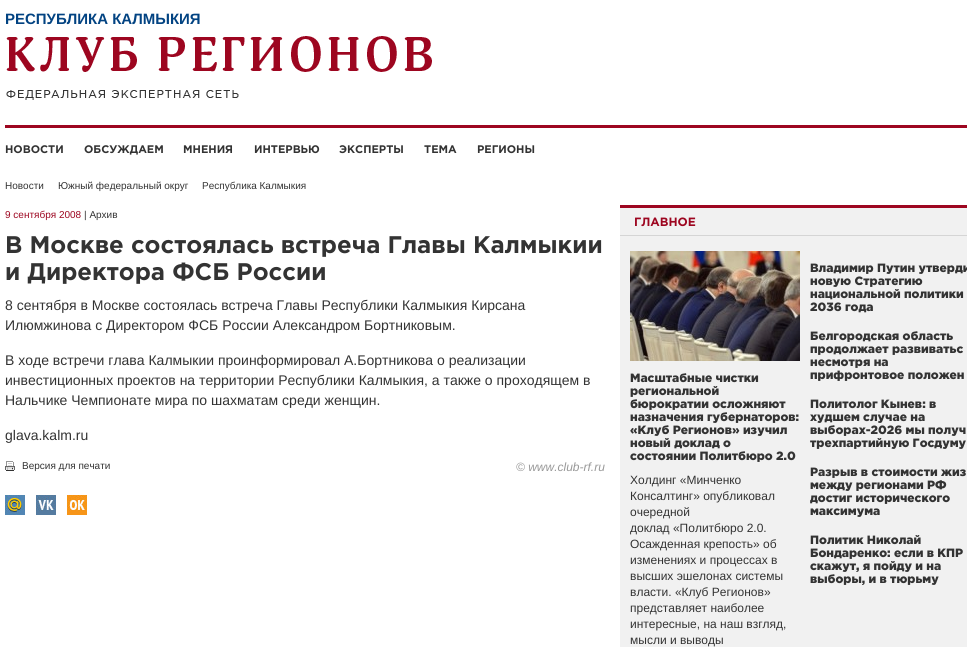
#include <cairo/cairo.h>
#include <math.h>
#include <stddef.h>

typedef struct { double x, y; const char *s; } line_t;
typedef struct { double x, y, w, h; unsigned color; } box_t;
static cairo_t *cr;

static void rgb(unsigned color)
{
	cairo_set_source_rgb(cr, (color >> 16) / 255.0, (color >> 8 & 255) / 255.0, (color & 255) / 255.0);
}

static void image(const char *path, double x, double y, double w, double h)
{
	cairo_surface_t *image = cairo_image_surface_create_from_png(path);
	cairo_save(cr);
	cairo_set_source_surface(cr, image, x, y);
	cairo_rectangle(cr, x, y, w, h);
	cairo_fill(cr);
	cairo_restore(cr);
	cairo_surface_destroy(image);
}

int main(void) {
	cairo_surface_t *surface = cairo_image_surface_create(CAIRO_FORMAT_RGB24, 967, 647);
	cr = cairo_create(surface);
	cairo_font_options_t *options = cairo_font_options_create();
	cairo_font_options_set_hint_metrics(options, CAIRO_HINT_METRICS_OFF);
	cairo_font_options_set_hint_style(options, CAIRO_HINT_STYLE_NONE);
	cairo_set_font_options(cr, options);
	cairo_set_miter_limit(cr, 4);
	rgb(0xffffff);
	cairo_paint(cr);
	rgb(0x9d0620);
	cairo_rectangle(cr, 5, 125, 962, 3);
	cairo_fill(cr);
	image("img/1.png", 6, 36, 426, 64);
	image("img/2.png", 5, 461, 10, 10);
	image("img/3.png", 5, 495, 20, 20);
	image("img/4.png", 36, 495, 20, 20);
	image("img/5.png", 67, 495, 20, 20);
	{
		static const box_t items[] = {
			{620, 208, 347, 439, 0xf1f1f1},
			{620, 205, 347, 3, 0x9d0620},
			{620, 235, 347, 1, 0xd5d5d5},
		};
		for (size_t i = 0; i < sizeof items / sizeof *items; i++) {
			rgb(items[i].color);
			cairo_rectangle(cr, items[i].x, items[i].y, items[i].w, items[i].h);
			cairo_fill(cr);
		}
	}
	image("img/6.png", 630, 251, 170, 110);
	cairo_select_font_face(cr, "Liberation Sans", CAIRO_FONT_SLANT_NORMAL, CAIRO_FONT_WEIGHT_BOLD);
	cairo_set_font_size(cr, 15);
	rgb(0x024382);
	cairo_move_to(cr, 5, 24);
	cairo_show_text(cr, "РЕСПУБЛИКА КАЛМЫКИЯ");
	cairo_select_font_face(cr, "Gotham", CAIRO_FONT_SLANT_NORMAL, CAIRO_FONT_WEIGHT_BOLD);
	cairo_set_font_size(cr, 11);
	rgb(0x333333);
	{
		static const line_t items[] = {
			{5, 153, "НОВОСТИ"},
			{84, 153, "ОБСУЖДАЕМ"},
			{183, 153, "МНЕНИЯ"},
			{254, 153, "ИНТЕРВЬЮ"},
			{339, 153, "ЭКСПЕРТЫ"},
			{424, 153, "ТЕМА"},
			{477, 153, "РЕГИОНЫ"},
		};
		for (size_t i = 0; i < sizeof items / sizeof *items; i++) {
			cairo_move_to(cr, items[i].x, items[i].y);
			cairo_show_text(cr, items[i].s);
		}
	}
	cairo_select_font_face(cr, "Liberation Sans", CAIRO_FONT_SLANT_NORMAL, CAIRO_FONT_WEIGHT_NORMAL);
	cairo_set_font_size(cr, 10);
	{
		static const line_t items[] = {
			{5, 189, "Новости"},
			{58, 189, "Южный федеральный округ"},
			{202, 189, "Республика Калмыкия"},
		};
		for (size_t i = 0; i < sizeof items / sizeof *items; i++) {
			cairo_move_to(cr, items[i].x, items[i].y);
			cairo_show_text(cr, items[i].s);
		}
	}
	rgb(0x9d0620);
	cairo_move_to(cr, 5, 218);
	cairo_show_text(cr, "9 сентября 2008");
	rgb(0x333333);
	cairo_move_to(cr, 84, 218);
	cairo_show_text(cr, "| Архив");
	cairo_select_font_face(cr, "Gotham", CAIRO_FONT_SLANT_NORMAL, CAIRO_FONT_WEIGHT_BOLD);
	cairo_set_font_size(cr, 24);
	cairo_move_to(cr, 5, 253);
	cairo_show_text(cr, "В Москве состоялась встреча Главы Калмыкии");
	cairo_move_to(cr, 5, 280);
	cairo_show_text(cr, "и Директора ФСБ России");
	cairo_select_font_face(cr, "Liberation Sans", CAIRO_FONT_SLANT_NORMAL, CAIRO_FONT_WEIGHT_NORMAL);
	cairo_set_font_size(cr, 14);
	{
		static const line_t items[] = {
			{5, 310, "8 сентября в Москве состоялась встреча Главы Республики Калмыкия Кирсана"},
			{5, 330, "Илюмжинова с Директором ФСБ России Александром Бортниковым."},
			{5, 365, "В ходе встречи глава Калмыкии проинформировал А.Бортникова о реализации"},
			{5, 385, "инвестиционных проектов на территории Республики Калмыкия, а также о проходящем в"},
			{5, 405, "Нальчике Чемпионате мира по шахматам среди женщин."},
			{5, 440, "glava.kalm.ru"},
		};
		for (size_t i = 0; i < sizeof items / sizeof *items; i++) {
			cairo_move_to(cr, items[i].x, items[i].y);
			cairo_show_text(cr, items[i].s);
		}
	}
	cairo_set_font_size(cr, 10);
	cairo_move_to(cr, 22, 469);
	cairo_show_text(cr, "Версия для печати");
	cairo_select_font_face(cr, "Liberation Sans", CAIRO_FONT_SLANT_ITALIC, CAIRO_FONT_WEIGHT_NORMAL);
	cairo_set_font_size(cr, 12);
	rgb(0x999999);
	cairo_move_to(cr, 516, 471);
	cairo_show_text(cr, "© www.club-rf.ru");
	cairo_select_font_face(cr, "Gotham", CAIRO_FONT_SLANT_NORMAL, CAIRO_FONT_WEIGHT_BOLD);
	rgb(0x9d0620);
	cairo_move_to(cr, 634, 226);
	cairo_show_text(cr, "ГЛАВНОЕ");
	cairo_select_font_face(cr, "Gotham Black", CAIRO_FONT_SLANT_NORMAL, CAIRO_FONT_WEIGHT_NORMAL);
	rgb(0x333333);
	{
		static const line_t items[] = {
			{630, 382, "Масштабные чистки"},
			{630, 395, "региональной"},
			{630, 408, "бюрократии осложняют"},
			{630, 421, "назначения губернаторов:"},
			{630, 434, "«Клуб Регионов» изучил"},
			{630, 447, "новый доклад о"},
			{630, 460, "состоянии Политбюро 2.0"},
		};
		for (size_t i = 0; i < sizeof items / sizeof *items; i++) {
			cairo_move_to(cr, items[i].x, items[i].y);
			cairo_show_text(cr, items[i].s);
		}
	}
	cairo_select_font_face(cr, "Liberation Sans", CAIRO_FONT_SLANT_NORMAL, CAIRO_FONT_WEIGHT_NORMAL);
	{
		static const line_t items[] = {
			{630, 484, "Холдинг «Минченко"},
			{630, 500, "Консалтинг» опубликовал"},
			{630, 516, "очередной"},
			{630, 532, "доклад «Политбюро 2.0."},
			{630, 548, "Осажденная крепость» об"},
			{630, 564, "изменениях и процессах в"},
			{630, 580, "высших эшелонах системы"},
			{630, 596, "власти. «Клуб Регионов»"},
			{630, 612, "представляет наиболее"},
			{630, 628, "интересные, на наш взгляд,"},
			{630, 644, "мысли и выводы"},
		};
		for (size_t i = 0; i < sizeof items / sizeof *items; i++) {
			cairo_move_to(cr, items[i].x, items[i].y);
			cairo_show_text(cr, items[i].s);
		}
	}
	cairo_select_font_face(cr, "Gotham Black", CAIRO_FONT_SLANT_NORMAL, CAIRO_FONT_WEIGHT_NORMAL);
	{
		static const line_t items[] = {
			{810, 272, "Владимир Путин утверди"},
			{810, 285, "новую Стратегию"},
			{810, 298, "национальной политики"},
			{810, 311, "2036 года"},
			{810, 340, "Белгородская область"},
			{810, 353, "продолжает развиватьс"},
			{810, 366, "несмотря на"},
			{810, 379, "прифронтовое положен"},
			{810, 408, "Политолог Кынев: в"},
			{810, 421, "худшем случае на"},
			{810, 434, "выборах-2026 мы получ"},
			{810, 447, "трехпартийную Госдуму"},
			{810, 476, "Разрыв в стоимости жиз"},
			{810, 489, "между регионами РФ"},
			{810, 502, "достиг исторического"},
			{810, 515, "максимума"},
			{810, 544, "Политик Николай"},
			{810, 557, "Бондаренко: если в КПР"},
			{810, 570, "скажут, я пойду и на"},
			{810, 583, "выборы, и в тюрьму"},
		};
		for (size_t i = 0; i < sizeof items / sizeof *items; i++) {
			cairo_move_to(cr, items[i].x, items[i].y);
			cairo_show_text(cr, items[i].s);
		}
	}
	cairo_surface_write_to_png(surface, "page.png");
	cairo_font_options_destroy(options);
	cairo_destroy(cr);
	cairo_surface_destroy(surface);
	return 0;
}
